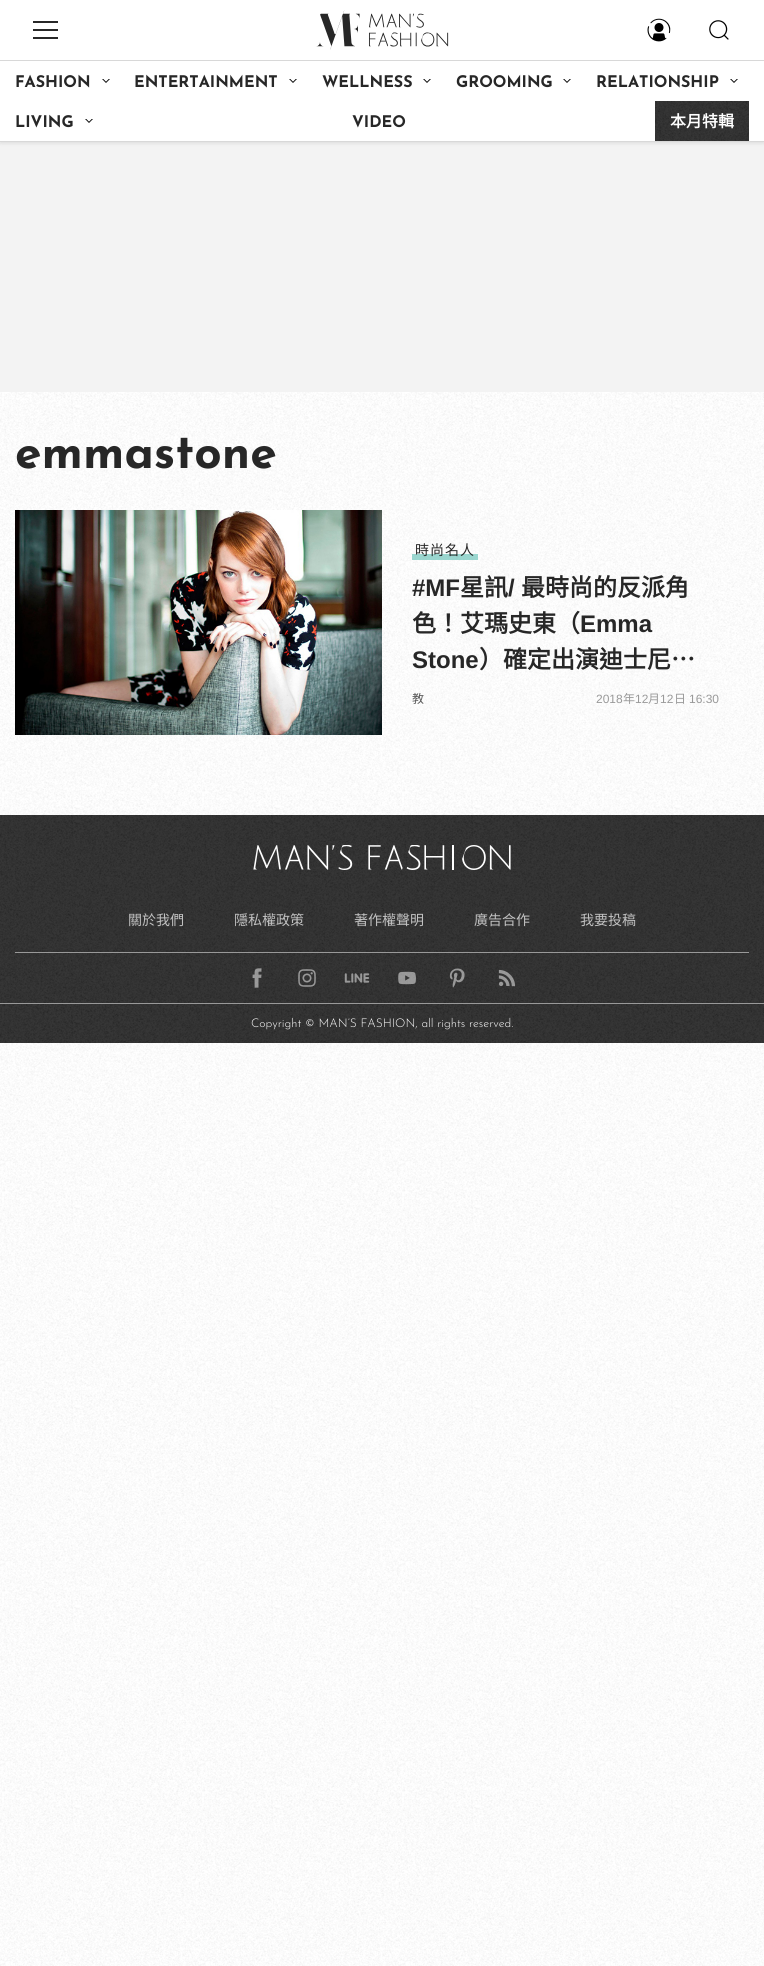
#include <cairo/cairo.h>
#include <math.h>
#include <stddef.h>

typedef struct { double x, y; const char *s; } line_t;
typedef struct { double x, y, w, h; unsigned color; } box_t;
static cairo_t *cr;

static void rgb(unsigned color)
{
	cairo_set_source_rgb(cr, (color >> 16) / 255.0, (color >> 8 & 255) / 255.0, (color & 255) / 255.0);
}

static void tracked(double x, double y, const char *s, double letter, double word)
{
	cairo_move_to(cr, x, y);
	while (*s) {
		char ch[5] = {0};
		int n = 0;
		do ch[n++] = *s++; while ((*s & 0xC0) == 0x80);
		cairo_show_text(cr, ch);
		cairo_rel_move_to(cr, letter + word * (*ch == ' '), 0);
	}
}

static void rrect(double x, double y, double w, double h, double r)
{
	cairo_new_sub_path(cr);
	cairo_arc(cr, x + w - r, y + h - r, r, 0, M_PI / 2);
	cairo_arc(cr, x + r, y + h - r, r, M_PI / 2, M_PI);
	cairo_arc(cr, x + r, y + r, r, M_PI, 1.5 * M_PI);
	cairo_arc(cr, x + w - r, y + r, r, 1.5 * M_PI, 2 * M_PI);
	cairo_close_path(cr);
}

static void soft_shadow(double x, double y, double w, double h, double r, double blur, double alpha)
{
	cairo_push_group_with_content(cr, CAIRO_CONTENT_ALPHA);
	cairo_set_operator(cr, CAIRO_OPERATOR_SOURCE);
	for (int i = 15; i >= -15 && fmin(w, h) + blur * i / 3 > 0; i -= 2) {
		double e = blur * i / 6;
		cairo_set_source_rgba(cr, 0, 0, 0, alpha * erfc((i - 1) / 8.5) / 2);
		rrect(x - e, y - e, w + 2 * e, h + 2 * e, fmax(0, fmin(r + e + blur * .6, fmin(w, h) / 2 + e)));
		cairo_fill(cr);
	}
	cairo_pattern_t *soft = cairo_pop_group(cr);
	cairo_mask(cr, soft);
	cairo_pattern_destroy(soft);
}

static void image(const char *path, double x, double y, double w, double h)
{
	cairo_surface_t *image = cairo_image_surface_create_from_png(path);
	cairo_save(cr);
	cairo_set_source_surface(cr, image, x, y);
	cairo_rectangle(cr, x, y, w, h);
	cairo_fill(cr);
	cairo_restore(cr);
	cairo_surface_destroy(image);
}

int main(void) {
	cairo_surface_t *surface = cairo_image_surface_create(CAIRO_FORMAT_RGB24, 764, 1966);
	cr = cairo_create(surface);
	cairo_font_options_t *options = cairo_font_options_create();
	cairo_font_options_set_hint_metrics(options, CAIRO_HINT_METRICS_OFF);
	cairo_font_options_set_hint_style(options, CAIRO_HINT_STYLE_NONE);
	cairo_set_font_options(cr, options);
	cairo_set_miter_limit(cr, 4);
	rgb(0xffffff);
	cairo_paint(cr);
	image("img/1.png", 0, 392, 764, 1574);
	rgb(0xf3f3f3);
	cairo_rectangle(cr, 0, 142, 764, 250);
	cairo_fill(cr);
	rgb(0x000000);
	soft_shadow(0, 0, 764, 142, 0, 2.5, 0.15);
	{
		static const box_t items[] = {
			{0, 0, 764, 141, 0xffffff},
			{33, 21, 25, 2, 0x272727},
			{33, 29, 25, 2, 0x272727},
			{33, 37, 25, 2, 0x272727},
		};
		for (size_t i = 0; i < sizeof items / sizeof *items; i++) {
			rgb(items[i].color);
			cairo_rectangle(cr, items[i].x, items[i].y, items[i].w, items[i].h);
			cairo_fill(cr);
		}
	}
	image("img/2.png", 316, 10, 133, 40);
	image("img/3.png", 647, 18, 24, 24);
	image("img/4.png", 709, 20, 20, 20);
	rgb(0xd8d8d8);
	cairo_rectangle(cr, 0, 60, 764, 1);
	cairo_fill(cr);
	cairo_rectangle(cr, 0, 141, 764, 1);
	cairo_fill(cr);
	image("img/5.png", 102, 79, 8, 4);
	image("img/5.png", 289, 79, 8, 4);
	image("img/5.png", 423, 79, 8, 4);
	image("img/5.png", 563, 79, 8, 4);
	image("img/5.png", 730, 79, 8, 4);
	image("img/5.png", 85, 119, 8, 4);
	rgb(0x272727);
	cairo_rectangle(cr, 655, 101, 94, 40);
	cairo_fill(cr);
	image("img/6.png", 655, 101, 94, 40);
	image("img/7.png", 15, 510, 367, 225);
	cairo_set_source_rgba(cr, 0.443, 0.776, 0.737, 0.7);
	cairo_rectangle(cr, 412, 554, 66, 6);
	cairo_fill(cr);
	rgb(0x272727);
	cairo_rectangle(cr, 0, 815, 764, 228);
	cairo_fill(cr);
	image("img/8.png", 0, 815, 764, 228);
	image("img/9.png", 253, 845, 258, 25);
	rgb(0x999999);
	cairo_rectangle(cr, 15, 952, 734, 1);
	cairo_fill(cr);
	image("img/10.png", 252, 968, 10, 20);
	image("img/11.png", 298, 969, 18, 18);
	image("img/12.png", 344, 973, 26, 10);
	image("img/13.png", 398, 971, 18, 14);
	image("img/14.png", 449, 968, 16, 20);
	image("img/15.png", 498, 969, 18, 18);
	cairo_rectangle(cr, 0, 1003, 764, 1);
	cairo_fill(cr);
	cairo_select_font_face(cr, "Josefin Sans", CAIRO_FONT_SLANT_NORMAL, CAIRO_FONT_WEIGHT_BOLD);
	cairo_set_font_size(cr, 16);
	rgb(0x272727);
	{
		static const line_t items[] = {
			{15, 87, "FASHION"},
			{134, 87, "ENTERTAINMENT"},
			{322, 87, "WELLNESS"},
			{456, 87, "GROOMING"},
			{596, 87, "RELATIONSHIP"},
			{15, 127, "LIVING"},
			{352, 127, "VIDEO"},
		};
		for (size_t i = 0; i < sizeof items / sizeof *items; i++) {
			cairo_move_to(cr, items[i].x, items[i].y);
			cairo_show_text(cr, items[i].s);
		}
	}
	cairo_select_font_face(cr, "Noto Sans CJK TC", CAIRO_FONT_SLANT_NORMAL, CAIRO_FONT_WEIGHT_BOLD);
	rgb(0xffffff);
	cairo_move_to(cr, 670, 127);
	cairo_show_text(cr, "本月特輯");
	cairo_select_font_face(cr, "Josefin Sans", CAIRO_FONT_SLANT_NORMAL, CAIRO_FONT_WEIGHT_BOLD);
	cairo_set_font_size(cr, 48);
	rgb(0x272727);
	cairo_move_to(cr, 15, 468);
	cairo_show_text(cr, "emmastone");
	cairo_select_font_face(cr, "Noto Sans CJK TC", CAIRO_FONT_SLANT_NORMAL, CAIRO_FONT_WEIGHT_NORMAL);
	cairo_set_font_size(cr, 14);
	tracked(415, 555, "時尚名人", 1, 0);
	cairo_select_font_face(cr, "Liberation Sans", CAIRO_FONT_SLANT_NORMAL, CAIRO_FONT_WEIGHT_BOLD);
	cairo_set_font_size(cr, 24);
	cairo_move_to(cr, 412, 596);
	cairo_show_text(cr, "#MF");
	cairo_select_font_face(cr, "Noto Sans CJK TC", CAIRO_FONT_SLANT_NORMAL, CAIRO_FONT_WEIGHT_BOLD);
	cairo_move_to(cr, 460, 596);
	cairo_show_text(cr, "星訊");
	cairo_select_font_face(cr, "Liberation Sans", CAIRO_FONT_SLANT_NORMAL, CAIRO_FONT_WEIGHT_BOLD);
	cairo_move_to(cr, 508, 596);
	cairo_show_text(cr, "/");
	cairo_select_font_face(cr, "Noto Sans CJK TC", CAIRO_FONT_SLANT_NORMAL, CAIRO_FONT_WEIGHT_BOLD);
	cairo_move_to(cr, 521, 596);
	cairo_show_text(cr, "最時尚的反派角");
	cairo_move_to(cr, 412, 632);
	cairo_show_text(cr, "色！艾瑪史東（");
	cairo_select_font_face(cr, "Liberation Sans", CAIRO_FONT_SLANT_NORMAL, CAIRO_FONT_WEIGHT_BOLD);
	cairo_move_to(cr, 580, 632);
	cairo_show_text(cr, "Emma");
	cairo_move_to(cr, 412, 668);
	cairo_show_text(cr, "Stone");
	cairo_select_font_face(cr, "Noto Sans CJK TC", CAIRO_FONT_SLANT_NORMAL, CAIRO_FONT_WEIGHT_BOLD);
	cairo_move_to(cr, 479, 668);
	cairo_show_text(cr, "）確定出演迪士尼…");
	cairo_select_font_face(cr, "Noto Sans CJK TC", CAIRO_FONT_SLANT_NORMAL, CAIRO_FONT_WEIGHT_NORMAL);
	cairo_set_font_size(cr, 12);
	rgb(0x555555);
	cairo_move_to(cr, 412, 703);
	cairo_show_text(cr, "教");
	cairo_select_font_face(cr, "Liberation Sans", CAIRO_FONT_SLANT_NORMAL, CAIRO_FONT_WEIGHT_NORMAL);
	rgb(0x999999);
	cairo_move_to(cr, 596, 703);
	cairo_show_text(cr, "2018");
	cairo_select_font_face(cr, "Noto Sans CJK TC", CAIRO_FONT_SLANT_NORMAL, CAIRO_FONT_WEIGHT_NORMAL);
	cairo_move_to(cr, 623, 703);
	cairo_show_text(cr, "年");
	cairo_select_font_face(cr, "Liberation Sans", CAIRO_FONT_SLANT_NORMAL, CAIRO_FONT_WEIGHT_NORMAL);
	cairo_move_to(cr, 635, 703);
	cairo_show_text(cr, "12");
	cairo_select_font_face(cr, "Noto Sans CJK TC", CAIRO_FONT_SLANT_NORMAL, CAIRO_FONT_WEIGHT_NORMAL);
	cairo_move_to(cr, 648, 703);
	cairo_show_text(cr, "月");
	cairo_select_font_face(cr, "Liberation Sans", CAIRO_FONT_SLANT_NORMAL, CAIRO_FONT_WEIGHT_NORMAL);
	cairo_move_to(cr, 660, 703);
	cairo_show_text(cr, "12");
	cairo_select_font_face(cr, "Noto Sans CJK TC", CAIRO_FONT_SLANT_NORMAL, CAIRO_FONT_WEIGHT_NORMAL);
	cairo_move_to(cr, 674, 703);
	cairo_show_text(cr, "日");
	cairo_select_font_face(cr, "Liberation Sans", CAIRO_FONT_SLANT_NORMAL, CAIRO_FONT_WEIGHT_NORMAL);
	cairo_move_to(cr, 689, 703);
	cairo_show_text(cr, "16:30");
	cairo_select_font_face(cr, "Noto Sans CJK TC", CAIRO_FONT_SLANT_NORMAL, CAIRO_FONT_WEIGHT_NORMAL);
	cairo_set_font_size(cr, 14);
	rgb(0xc2c2c2);
	{
		static const line_t items[] = {
			{128, 925, "關於我們"},
			{234, 925, "隱私權政策"},
			{354, 925, "著作權聲明"},
			{474, 925, "廣告合作"},
			{580, 925, "我要投稿"},
		};
		for (size_t i = 0; i < sizeof items / sizeof *items; i++) {
			cairo_move_to(cr, items[i].x, items[i].y);
			cairo_show_text(cr, items[i].s);
		}
	}
	cairo_select_font_face(cr, "Josefin Sans Light", CAIRO_FONT_SLANT_NORMAL, CAIRO_FONT_WEIGHT_NORMAL);
	cairo_set_font_size(cr, 12);
	rgb(0xffffff);
	cairo_move_to(cr, 251, 1027);
	cairo_show_text(cr, "Copyright © MAN’S FASHION, all rights reserved.");
	cairo_surface_write_to_png(surface, "page.png");
	cairo_font_options_destroy(options);
	cairo_destroy(cr);
	cairo_surface_destroy(surface);
	return 0;
}
